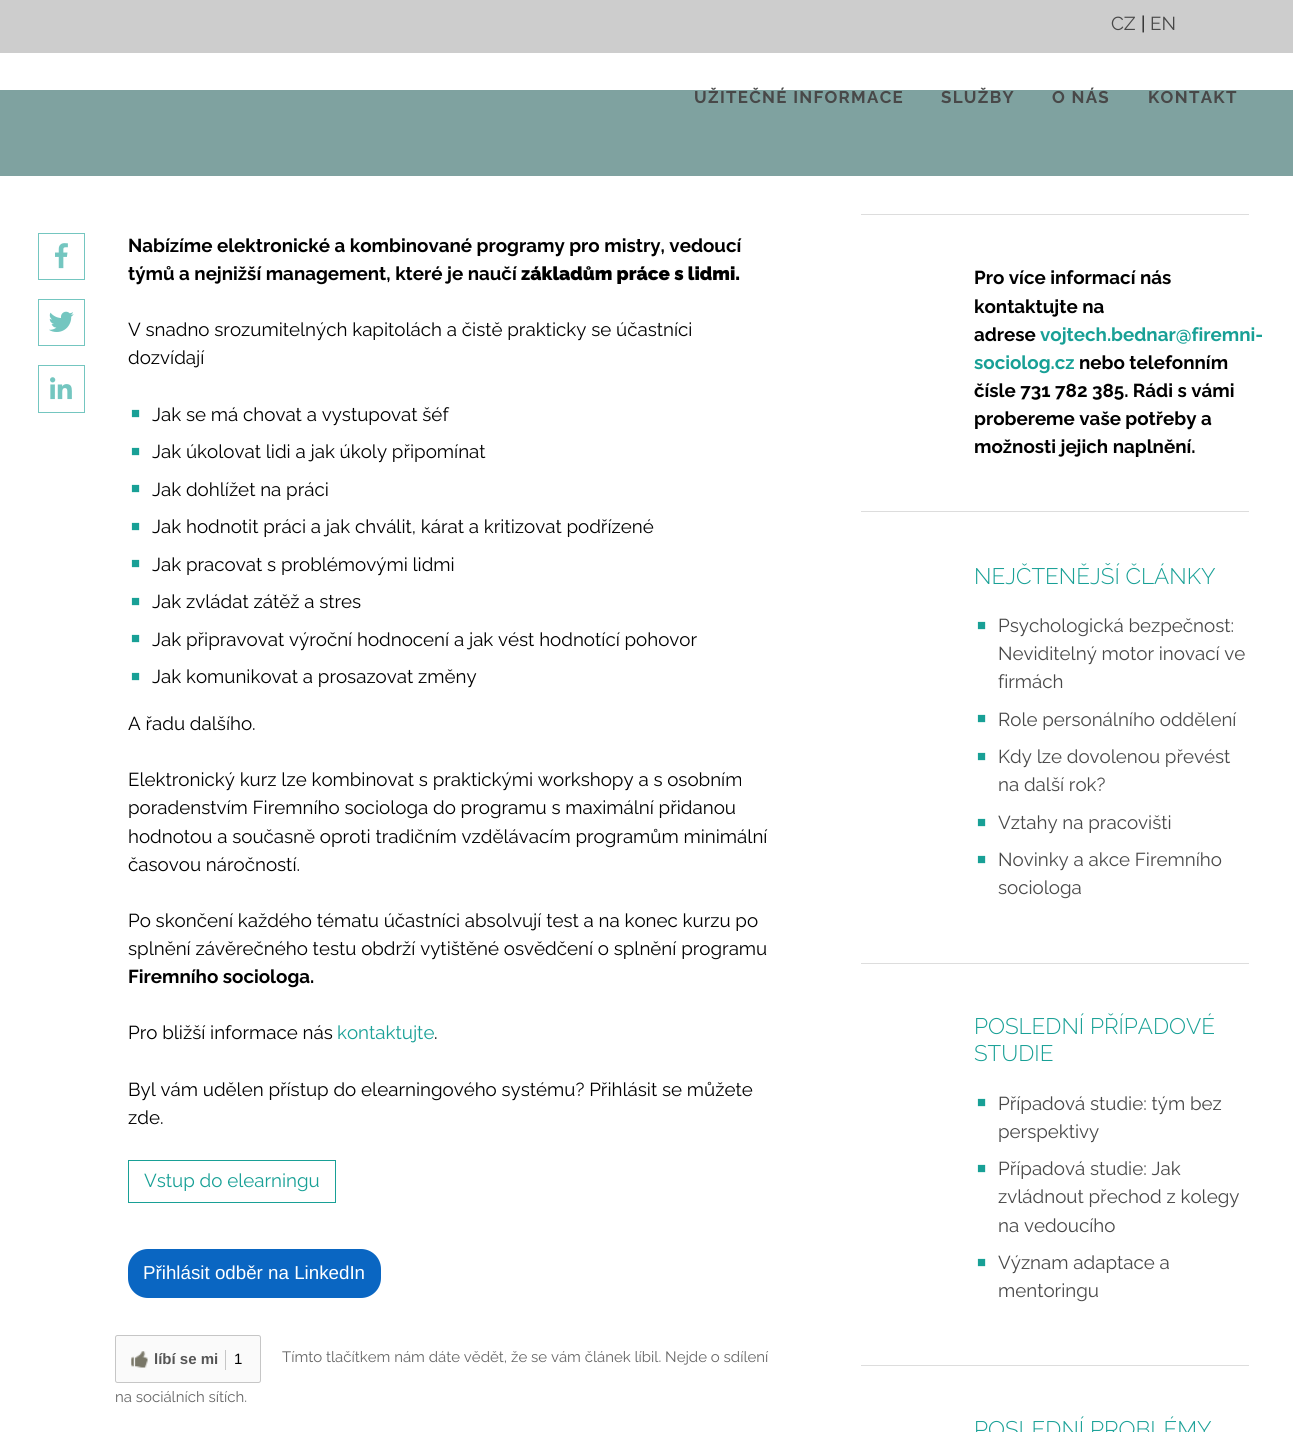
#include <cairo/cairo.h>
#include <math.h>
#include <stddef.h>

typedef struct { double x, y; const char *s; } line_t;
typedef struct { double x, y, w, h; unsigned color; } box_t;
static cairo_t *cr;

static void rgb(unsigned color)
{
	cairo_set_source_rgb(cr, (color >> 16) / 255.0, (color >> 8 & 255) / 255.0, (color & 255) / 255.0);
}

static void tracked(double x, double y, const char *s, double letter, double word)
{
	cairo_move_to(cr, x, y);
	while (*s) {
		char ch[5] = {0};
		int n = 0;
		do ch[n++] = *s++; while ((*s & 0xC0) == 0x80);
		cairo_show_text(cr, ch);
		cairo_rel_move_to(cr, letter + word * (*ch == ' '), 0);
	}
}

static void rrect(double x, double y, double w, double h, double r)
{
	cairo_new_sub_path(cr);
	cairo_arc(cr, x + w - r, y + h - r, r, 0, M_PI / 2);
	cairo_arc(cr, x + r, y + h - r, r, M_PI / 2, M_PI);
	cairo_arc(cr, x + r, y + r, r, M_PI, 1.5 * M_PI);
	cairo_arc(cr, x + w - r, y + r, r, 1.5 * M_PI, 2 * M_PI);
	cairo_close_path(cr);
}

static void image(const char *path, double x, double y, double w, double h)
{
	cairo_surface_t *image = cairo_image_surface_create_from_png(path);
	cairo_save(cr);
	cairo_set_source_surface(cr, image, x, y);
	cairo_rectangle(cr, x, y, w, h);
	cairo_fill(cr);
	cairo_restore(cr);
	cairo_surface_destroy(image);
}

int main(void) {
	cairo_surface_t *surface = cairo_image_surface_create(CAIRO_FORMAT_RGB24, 1293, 1432);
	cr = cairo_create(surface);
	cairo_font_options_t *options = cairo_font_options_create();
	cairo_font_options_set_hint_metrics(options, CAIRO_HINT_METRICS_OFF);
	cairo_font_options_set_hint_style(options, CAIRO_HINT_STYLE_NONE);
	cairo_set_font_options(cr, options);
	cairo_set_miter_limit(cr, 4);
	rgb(0xffffff);
	cairo_paint(cr);
	rgb(0xcdcdcd);
	cairo_rectangle(cr, 0, 0, 1293, 53);
	cairo_fill(cr);
	rgb(0x7fa2a0);
	cairo_rectangle(cr, 0, 90, 1293, 86);
	cairo_fill(cr);
	cairo_rectangle(cr, 38.5, 233.5, 46, 46);
	rgb(0x74c6c0);
	cairo_set_line_width(cr, 1);
	cairo_stroke(cr);
	image("img/1.png", 55, 243, 13, 26);
	cairo_rectangle(cr, 38.5, 299.5, 46, 46);
	cairo_stroke(cr);
	image("img/2.png", 49, 311, 25, 21);
	cairo_rectangle(cr, 38.5, 365.5, 46, 47);
	cairo_stroke(cr);
	image("img/3.png", 50, 377, 22, 23);
	cairo_rectangle(cr, 128.5, 1160.5, 207, 42);
	rgb(0x18a096);
	cairo_stroke(cr);
	rgb(0x0a66c2);
	rrect(128, 1249, 253, 49, 20);
	cairo_fill(cr);
	rgb(0xfafafa);
	rrect(115.5, 1335.5, 145, 47, 2);
	cairo_fill_preserve(cr);
	rgb(0xc6c6c6);
	cairo_stroke(cr);
	image("img/4.png", 131, 1351, 17, 17);
	{
		static const box_t items[] = {
			{225, 1350, 1, 20, 0xc6c6c6},
			{861, 214, 388, 1, 0xdddddd},
			{861, 511, 388, 1, 0xdddddd},
			{861, 963, 388, 1, 0xdddddd},
			{861, 1365, 388, 1, 0xdddddd},
		};
		for (size_t i = 0; i < sizeof items / sizeof *items; i++) {
			rgb(items[i].color);
			cairo_rectangle(cr, items[i].x, items[i].y, items[i].w, items[i].h);
			cairo_fill(cr);
		}
	}
	cairo_select_font_face(cr, "Raleway", CAIRO_FONT_SLANT_NORMAL, CAIRO_FONT_WEIGHT_NORMAL);
	cairo_set_font_size(cr, 18.75);
	rgb(0x484848);
	cairo_move_to(cr, 1111, 30);
	cairo_show_text(cr, "CZ");
	rgb(0x000000);
	cairo_move_to(cr, 1141, 30);
	cairo_show_text(cr, "|");
	rgb(0x484848);
	cairo_move_to(cr, 1150, 30);
	cairo_show_text(cr, "EN");
	cairo_select_font_face(cr, "Raleway", CAIRO_FONT_SLANT_NORMAL, CAIRO_FONT_WEIGHT_BOLD);
	cairo_set_font_size(cr, 16.9);
	{
		static const line_t items[] = {
			{694, 103, "UŽITEČNÉ INFORMACE"},
			{941, 103, "SLUŽBY"},
			{1052, 103, "O NÁS"},
			{1148, 103, "KONTAKT"},
		};
		for (size_t i = 0; i < sizeof items / sizeof *items; i++) {
			tracked(items[i].x, items[i].y, items[i].s, 1.3, 0);
		}
	}
	cairo_set_font_size(cr, 18.75);
	rgb(0x000000);
	cairo_move_to(cr, 128, 252);
	cairo_show_text(cr, "Nabízíme elektronické a kombinované programy pro mistry, vedoucí");
	cairo_move_to(cr, 128, 280);
	cairo_show_text(cr, "týmů a nejnižší management, které je naučí");
	cairo_select_font_face(cr, "Raleway Black", CAIRO_FONT_SLANT_NORMAL, CAIRO_FONT_WEIGHT_NORMAL);
	cairo_move_to(cr, 521, 280);
	cairo_show_text(cr, "základům práce s lidmi.");
	cairo_select_font_face(cr, "Raleway", CAIRO_FONT_SLANT_NORMAL, CAIRO_FONT_WEIGHT_NORMAL);
	cairo_move_to(cr, 128, 336);
	cairo_show_text(cr, "V snadno srozumitelných kapitolách a čistě prakticky se účastníci");
	cairo_move_to(cr, 128, 364);
	cairo_show_text(cr, "dozvídají");
	cairo_select_font_face(cr, "Liberation Sans", CAIRO_FONT_SLANT_NORMAL, CAIRO_FONT_WEIGHT_NORMAL);
	cairo_set_font_size(cr, 15);
	rgb(0x18a096);
	cairo_move_to(cr, 131, 418);
	cairo_show_text(cr, "■");
	cairo_select_font_face(cr, "Raleway", CAIRO_FONT_SLANT_NORMAL, CAIRO_FONT_WEIGHT_NORMAL);
	cairo_set_font_size(cr, 18.75);
	rgb(0x000000);
	cairo_move_to(cr, 152, 421);
	cairo_show_text(cr, "Jak se má chovat a vystupovat šéf");
	cairo_select_font_face(cr, "Liberation Sans", CAIRO_FONT_SLANT_NORMAL, CAIRO_FONT_WEIGHT_NORMAL);
	cairo_set_font_size(cr, 15);
	rgb(0x18a096);
	cairo_move_to(cr, 131, 456);
	cairo_show_text(cr, "■");
	cairo_select_font_face(cr, "Raleway", CAIRO_FONT_SLANT_NORMAL, CAIRO_FONT_WEIGHT_NORMAL);
	cairo_set_font_size(cr, 18.75);
	rgb(0x000000);
	cairo_move_to(cr, 152, 458);
	cairo_show_text(cr, "Jak úkolovat lidi a jak úkoly připomínat");
	cairo_select_font_face(cr, "Liberation Sans", CAIRO_FONT_SLANT_NORMAL, CAIRO_FONT_WEIGHT_NORMAL);
	cairo_set_font_size(cr, 15);
	rgb(0x18a096);
	cairo_move_to(cr, 131, 493);
	cairo_show_text(cr, "■");
	cairo_select_font_face(cr, "Raleway", CAIRO_FONT_SLANT_NORMAL, CAIRO_FONT_WEIGHT_NORMAL);
	cairo_set_font_size(cr, 18.75);
	rgb(0x000000);
	cairo_move_to(cr, 152, 496);
	cairo_show_text(cr, "Jak dohlížet na práci");
	cairo_select_font_face(cr, "Liberation Sans", CAIRO_FONT_SLANT_NORMAL, CAIRO_FONT_WEIGHT_NORMAL);
	cairo_set_font_size(cr, 15);
	rgb(0x18a096);
	cairo_move_to(cr, 131, 531);
	cairo_show_text(cr, "■");
	cairo_select_font_face(cr, "Raleway", CAIRO_FONT_SLANT_NORMAL, CAIRO_FONT_WEIGHT_NORMAL);
	cairo_set_font_size(cr, 18.75);
	rgb(0x000000);
	cairo_move_to(cr, 152, 533);
	cairo_show_text(cr, "Jak hodnotit práci a jak chválit, kárat a kritizovat podřízené");
	cairo_select_font_face(cr, "Liberation Sans", CAIRO_FONT_SLANT_NORMAL, CAIRO_FONT_WEIGHT_NORMAL);
	cairo_set_font_size(cr, 15);
	rgb(0x18a096);
	cairo_move_to(cr, 131, 568);
	cairo_show_text(cr, "■");
	cairo_select_font_face(cr, "Raleway", CAIRO_FONT_SLANT_NORMAL, CAIRO_FONT_WEIGHT_NORMAL);
	cairo_set_font_size(cr, 18.75);
	rgb(0x000000);
	cairo_move_to(cr, 152, 571);
	cairo_show_text(cr, "Jak pracovat s problémovými lidmi");
	cairo_select_font_face(cr, "Liberation Sans", CAIRO_FONT_SLANT_NORMAL, CAIRO_FONT_WEIGHT_NORMAL);
	cairo_set_font_size(cr, 15);
	rgb(0x18a096);
	cairo_move_to(cr, 131, 606);
	cairo_show_text(cr, "■");
	cairo_select_font_face(cr, "Raleway", CAIRO_FONT_SLANT_NORMAL, CAIRO_FONT_WEIGHT_NORMAL);
	cairo_set_font_size(cr, 18.75);
	rgb(0x000000);
	cairo_move_to(cr, 152, 608);
	cairo_show_text(cr, "Jak zvládat zátěž a stres");
	cairo_select_font_face(cr, "Liberation Sans", CAIRO_FONT_SLANT_NORMAL, CAIRO_FONT_WEIGHT_NORMAL);
	cairo_set_font_size(cr, 15);
	rgb(0x18a096);
	cairo_move_to(cr, 131, 643);
	cairo_show_text(cr, "■");
	cairo_select_font_face(cr, "Raleway", CAIRO_FONT_SLANT_NORMAL, CAIRO_FONT_WEIGHT_NORMAL);
	cairo_set_font_size(cr, 18.75);
	rgb(0x000000);
	cairo_move_to(cr, 152, 646);
	cairo_show_text(cr, "Jak připravovat výroční hodnocení a jak vést hodnotící pohovor");
	cairo_select_font_face(cr, "Liberation Sans", CAIRO_FONT_SLANT_NORMAL, CAIRO_FONT_WEIGHT_NORMAL);
	cairo_set_font_size(cr, 15);
	rgb(0x18a096);
	cairo_move_to(cr, 131, 681);
	cairo_show_text(cr, "■");
	cairo_select_font_face(cr, "Raleway", CAIRO_FONT_SLANT_NORMAL, CAIRO_FONT_WEIGHT_NORMAL);
	cairo_set_font_size(cr, 18.75);
	rgb(0x000000);
	{
		static const line_t items[] = {
			{152, 683, "Jak komunikovat a prosazovat změny"},
			{128, 730, "A řadu dalšího."},
			{128, 786, "Elektronický kurz lze kombinovat s praktickými workshopy a s osobním"},
			{128, 814, "poradenstvím Firemního sociologa do programu s maximální přidanou"},
			{128, 843, "hodnotou a současně oproti tradičním vzdělávacím programům minimální"},
			{128, 871, "časovou náročností."},
			{128, 927, "Po skončení každého tématu účastníci absolvují test a na konec kurzu po"},
			{128, 955, "splnění závěrečného testu obdrží vytištěné osvědčení o splnění programu"},
		};
		for (size_t i = 0; i < sizeof items / sizeof *items; i++) {
			cairo_move_to(cr, items[i].x, items[i].y);
			cairo_show_text(cr, items[i].s);
		}
	}
	cairo_select_font_face(cr, "Raleway", CAIRO_FONT_SLANT_NORMAL, CAIRO_FONT_WEIGHT_BOLD);
	cairo_move_to(cr, 128, 983);
	cairo_show_text(cr, "Firemního sociologa.");
	cairo_select_font_face(cr, "Raleway", CAIRO_FONT_SLANT_NORMAL, CAIRO_FONT_WEIGHT_NORMAL);
	cairo_move_to(cr, 128, 1039);
	cairo_show_text(cr, "Pro bližší informace nás");
	rgb(0x18a096);
	cairo_move_to(cr, 337, 1039);
	cairo_show_text(cr, "kontaktujte");
	rgb(0x000000);
	{
		static const line_t items[] = {
			{434, 1039, "."},
			{128, 1096, "Byl vám udělen přístup do elearningového systému? Přihlásit se můžete"},
			{128, 1124, "zde."},
		};
		for (size_t i = 0; i < sizeof items / sizeof *items; i++) {
			cairo_move_to(cr, items[i].x, items[i].y);
			cairo_show_text(cr, items[i].s);
		}
	}
	rgb(0x18a096);
	cairo_move_to(cr, 144, 1187);
	cairo_show_text(cr, "Vstup do elearningu");
	cairo_select_font_face(cr, "Liberation Sans", CAIRO_FONT_SLANT_NORMAL, CAIRO_FONT_WEIGHT_NORMAL);
	rgb(0xffffff);
	cairo_move_to(cr, 143, 1279);
	cairo_show_text(cr, "Přihlásit odběr na LinkedIn");
	cairo_select_font_face(cr, "Liberation Sans", CAIRO_FONT_SLANT_NORMAL, CAIRO_FONT_WEIGHT_BOLD);
	cairo_set_font_size(cr, 15);
	rgb(0x555555);
	cairo_move_to(cr, 154, 1364);
	cairo_show_text(cr, "líbí se mi");
	cairo_select_font_face(cr, "Liberation Sans", CAIRO_FONT_SLANT_NORMAL, CAIRO_FONT_WEIGHT_NORMAL);
	rgb(0x000000);
	cairo_move_to(cr, 234, 1364);
	cairo_show_text(cr, "1");
	cairo_select_font_face(cr, "Raleway", CAIRO_FONT_SLANT_NORMAL, CAIRO_FONT_WEIGHT_NORMAL);
	rgb(0x666666);
	cairo_move_to(cr, 282, 1362);
	cairo_show_text(cr, "Tímto tlačítkem nám dáte vědět, že se vám článek líbil. Nejde o sdílení");
	cairo_move_to(cr, 115, 1402);
	cairo_show_text(cr, "na sociálních sítích.");
	cairo_select_font_face(cr, "Raleway", CAIRO_FONT_SLANT_NORMAL, CAIRO_FONT_WEIGHT_BOLD);
	cairo_set_font_size(cr, 18.75);
	rgb(0x000000);
	{
		static const line_t items[] = {
			{974, 284, "Pro více informací nás"},
			{974, 313, "kontaktujte na"},
			{974, 341, "adrese"},
		};
		for (size_t i = 0; i < sizeof items / sizeof *items; i++) {
			cairo_move_to(cr, items[i].x, items[i].y);
			cairo_show_text(cr, items[i].s);
		}
	}
	rgb(0x18a096);
	cairo_move_to(cr, 1040, 341);
	cairo_show_text(cr, "vojtech.bednar@firemni-");
	cairo_move_to(cr, 974, 369);
	cairo_show_text(cr, "sociolog.cz");
	rgb(0x000000);
	{
		static const line_t items[] = {
			{1079, 369, "nebo telefonním"},
			{974, 397, "čísle 731 782 385. Rádi s vámi"},
			{974, 425, "probereme vaše potřeby a"},
			{974, 453, "možnosti jejich naplnění."},
		};
		for (size_t i = 0; i < sizeof items / sizeof *items; i++) {
			cairo_move_to(cr, items[i].x, items[i].y);
			cairo_show_text(cr, items[i].s);
		}
	}
	cairo_select_font_face(cr, "Raleway Light", CAIRO_FONT_SLANT_NORMAL, CAIRO_FONT_WEIGHT_NORMAL);
	cairo_set_font_size(cr, 22.5);
	rgb(0x18a096);
	cairo_move_to(cr, 974, 584);
	cairo_show_text(cr, "NEJČTENĚJŠÍ ČLÁNKY");
	cairo_select_font_face(cr, "Liberation Sans", CAIRO_FONT_SLANT_NORMAL, CAIRO_FONT_WEIGHT_NORMAL);
	cairo_set_font_size(cr, 15);
	cairo_move_to(cr, 977, 630);
	cairo_show_text(cr, "■");
	cairo_select_font_face(cr, "Raleway", CAIRO_FONT_SLANT_NORMAL, CAIRO_FONT_WEIGHT_NORMAL);
	cairo_set_font_size(cr, 18.75);
	rgb(0x484848);
	{
		static const line_t items[] = {
			{998, 632, "Psychologická bezpečnost:"},
			{998, 660, "Neviditelný motor inovací ve"},
			{998, 688, "firmách"},
		};
		for (size_t i = 0; i < sizeof items / sizeof *items; i++) {
			cairo_move_to(cr, items[i].x, items[i].y);
			cairo_show_text(cr, items[i].s);
		}
	}
	cairo_select_font_face(cr, "Liberation Sans", CAIRO_FONT_SLANT_NORMAL, CAIRO_FONT_WEIGHT_NORMAL);
	cairo_set_font_size(cr, 15);
	rgb(0x18a096);
	cairo_move_to(cr, 977, 723);
	cairo_show_text(cr, "■");
	cairo_select_font_face(cr, "Raleway", CAIRO_FONT_SLANT_NORMAL, CAIRO_FONT_WEIGHT_NORMAL);
	cairo_set_font_size(cr, 18.75);
	rgb(0x484848);
	cairo_move_to(cr, 998, 726);
	cairo_show_text(cr, "Role personálního oddělení");
	cairo_select_font_face(cr, "Liberation Sans", CAIRO_FONT_SLANT_NORMAL, CAIRO_FONT_WEIGHT_NORMAL);
	cairo_set_font_size(cr, 15);
	rgb(0x18a096);
	cairo_move_to(cr, 977, 761);
	cairo_show_text(cr, "■");
	cairo_select_font_face(cr, "Raleway", CAIRO_FONT_SLANT_NORMAL, CAIRO_FONT_WEIGHT_NORMAL);
	cairo_set_font_size(cr, 18.75);
	rgb(0x484848);
	cairo_move_to(cr, 998, 763);
	cairo_show_text(cr, "Kdy lze dovolenou převést");
	cairo_move_to(cr, 998, 791);
	cairo_show_text(cr, "na další rok?");
	cairo_select_font_face(cr, "Liberation Sans", CAIRO_FONT_SLANT_NORMAL, CAIRO_FONT_WEIGHT_NORMAL);
	cairo_set_font_size(cr, 15);
	rgb(0x18a096);
	cairo_move_to(cr, 977, 827);
	cairo_show_text(cr, "■");
	cairo_select_font_face(cr, "Raleway", CAIRO_FONT_SLANT_NORMAL, CAIRO_FONT_WEIGHT_NORMAL);
	cairo_set_font_size(cr, 18.75);
	rgb(0x484848);
	cairo_move_to(cr, 998, 829);
	cairo_show_text(cr, "Vztahy na pracovišti");
	cairo_select_font_face(cr, "Liberation Sans", CAIRO_FONT_SLANT_NORMAL, CAIRO_FONT_WEIGHT_NORMAL);
	cairo_set_font_size(cr, 15);
	rgb(0x18a096);
	cairo_move_to(cr, 977, 864);
	cairo_show_text(cr, "■");
	cairo_select_font_face(cr, "Raleway", CAIRO_FONT_SLANT_NORMAL, CAIRO_FONT_WEIGHT_NORMAL);
	cairo_set_font_size(cr, 18.75);
	rgb(0x484848);
	cairo_move_to(cr, 998, 866);
	cairo_show_text(cr, "Novinky a akce Firemního");
	cairo_move_to(cr, 998, 894);
	cairo_show_text(cr, "sociologa");
	cairo_select_font_face(cr, "Raleway Light", CAIRO_FONT_SLANT_NORMAL, CAIRO_FONT_WEIGHT_NORMAL);
	cairo_set_font_size(cr, 22.5);
	rgb(0x18a096);
	cairo_move_to(cr, 974, 1034);
	cairo_show_text(cr, "POSLEDNÍ PŘÍPADOVÉ");
	cairo_move_to(cr, 974, 1061);
	cairo_show_text(cr, "STUDIE");
	cairo_select_font_face(cr, "Liberation Sans", CAIRO_FONT_SLANT_NORMAL, CAIRO_FONT_WEIGHT_NORMAL);
	cairo_set_font_size(cr, 15);
	cairo_move_to(cr, 977, 1107);
	cairo_show_text(cr, "■");
	cairo_select_font_face(cr, "Raleway", CAIRO_FONT_SLANT_NORMAL, CAIRO_FONT_WEIGHT_NORMAL);
	cairo_set_font_size(cr, 18.75);
	rgb(0x484848);
	cairo_move_to(cr, 998, 1110);
	cairo_show_text(cr, "Případová studie: tým bez");
	cairo_move_to(cr, 998, 1138);
	cairo_show_text(cr, "perspektivy");
	cairo_select_font_face(cr, "Liberation Sans", CAIRO_FONT_SLANT_NORMAL, CAIRO_FONT_WEIGHT_NORMAL);
	cairo_set_font_size(cr, 15);
	rgb(0x18a096);
	cairo_move_to(cr, 977, 1173);
	cairo_show_text(cr, "■");
	cairo_select_font_face(cr, "Raleway", CAIRO_FONT_SLANT_NORMAL, CAIRO_FONT_WEIGHT_NORMAL);
	cairo_set_font_size(cr, 18.75);
	rgb(0x484848);
	{
		static const line_t items[] = {
			{998, 1175, "Případová studie: Jak"},
			{998, 1203, "zvládnout přechod z kolegy"},
			{998, 1232, "na vedoucího"},
		};
		for (size_t i = 0; i < sizeof items / sizeof *items; i++) {
			cairo_move_to(cr, items[i].x, items[i].y);
			cairo_show_text(cr, items[i].s);
		}
	}
	cairo_select_font_face(cr, "Liberation Sans", CAIRO_FONT_SLANT_NORMAL, CAIRO_FONT_WEIGHT_NORMAL);
	cairo_set_font_size(cr, 15);
	rgb(0x18a096);
	cairo_move_to(cr, 977, 1267);
	cairo_show_text(cr, "■");
	cairo_select_font_face(cr, "Raleway", CAIRO_FONT_SLANT_NORMAL, CAIRO_FONT_WEIGHT_NORMAL);
	cairo_set_font_size(cr, 18.75);
	rgb(0x484848);
	cairo_move_to(cr, 998, 1269);
	cairo_show_text(cr, "Význam adaptace a");
	cairo_move_to(cr, 998, 1297);
	cairo_show_text(cr, "mentoringu");
	cairo_select_font_face(cr, "Raleway Light", CAIRO_FONT_SLANT_NORMAL, CAIRO_FONT_WEIGHT_NORMAL);
	cairo_set_font_size(cr, 22.5);
	rgb(0x18a096);
	cairo_move_to(cr, 974, 1437);
	cairo_show_text(cr, "POSLEDNÍ PROBLÉMY");
	cairo_surface_write_to_png(surface, "page.png");
	cairo_font_options_destroy(options);
	cairo_destroy(cr);
	cairo_surface_destroy(surface);
	return 0;
}
